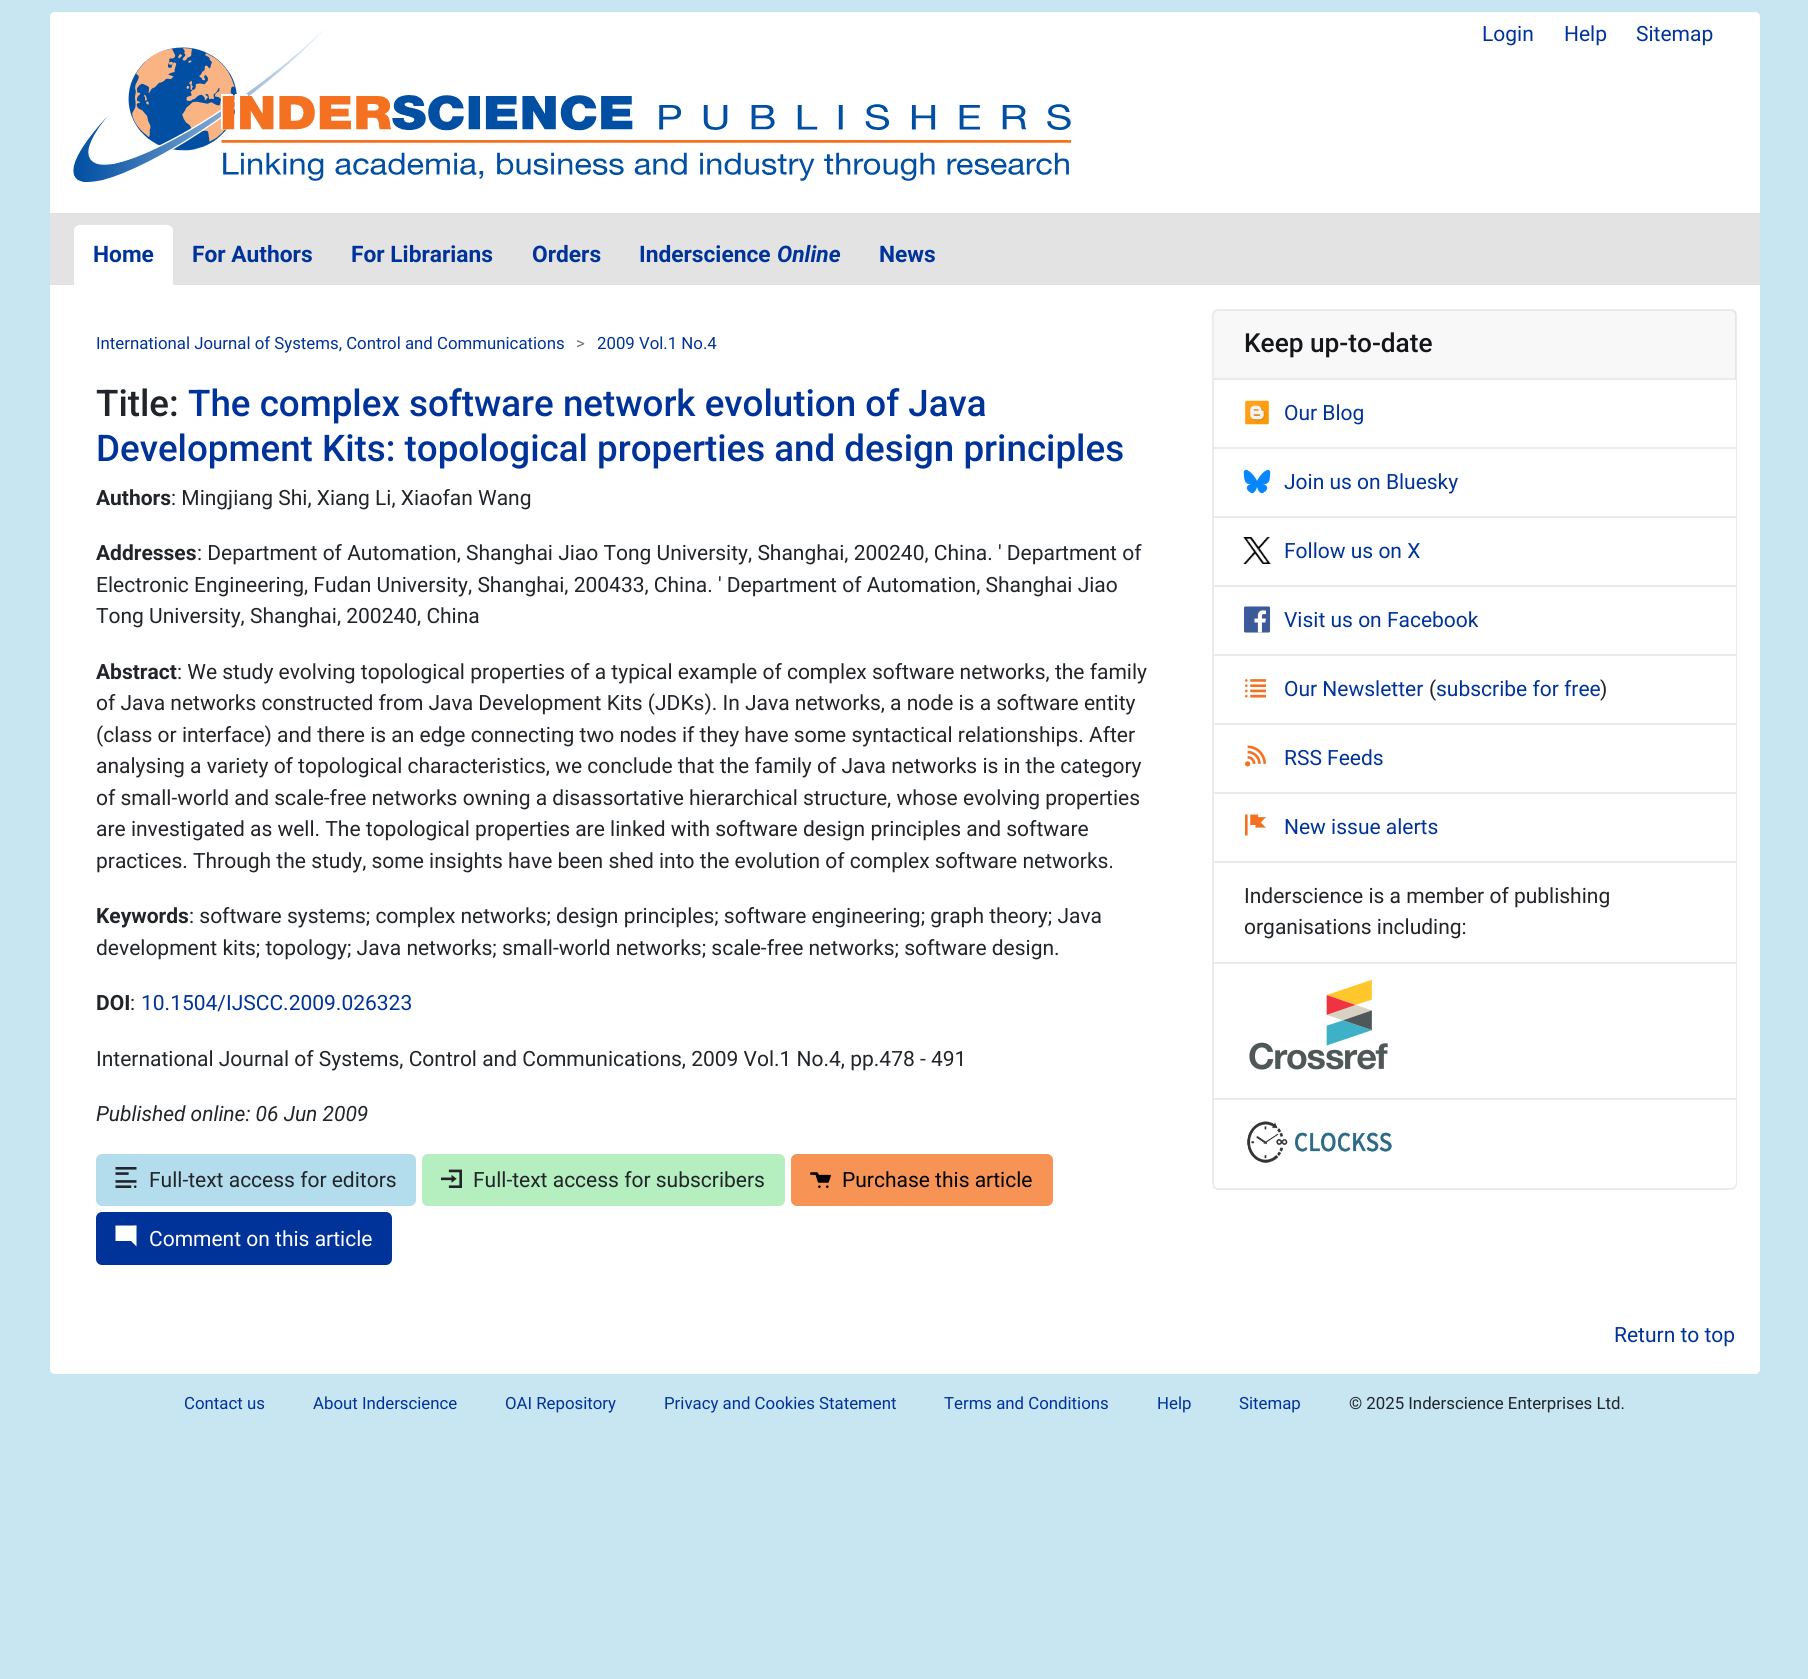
#include <cairo/cairo.h>
#include <math.h>
#include <stddef.h>

typedef struct { double x, y; const char *s; } line_t;
typedef struct { double x, y, w, h; unsigned color; } box_t;
static cairo_t *cr;

static void rgb(unsigned color)
{
	cairo_set_source_rgb(cr, (color >> 16) / 255.0, (color >> 8 & 255) / 255.0, (color & 255) / 255.0);
}

static void rrect(double x, double y, double w, double h, double r)
{
	cairo_new_sub_path(cr);
	cairo_arc(cr, x + w - r, y + h - r, r, 0, M_PI / 2);
	cairo_arc(cr, x + r, y + h - r, r, M_PI / 2, M_PI);
	cairo_arc(cr, x + r, y + r, r, M_PI, 1.5 * M_PI);
	cairo_arc(cr, x + w - r, y + r, r, 1.5 * M_PI, 2 * M_PI);
	cairo_close_path(cr);
}

static void image(const char *path, double x, double y, double w, double h)
{
	cairo_surface_t *image = cairo_image_surface_create_from_png(path);
	cairo_save(cr);
	cairo_set_source_surface(cr, image, x, y);
	cairo_rectangle(cr, x, y, w, h);
	cairo_fill(cr);
	cairo_restore(cr);
	cairo_surface_destroy(image);
}

int main(void) {
	cairo_surface_t *surface = cairo_image_surface_create(CAIRO_FORMAT_RGB24, 1808, 1679);
	cr = cairo_create(surface);
	cairo_font_options_t *options = cairo_font_options_create();
	cairo_font_options_set_hint_metrics(options, CAIRO_HINT_METRICS_OFF);
	cairo_font_options_set_hint_style(options, CAIRO_HINT_STYLE_NONE);
	cairo_set_font_options(cr, options);
	cairo_set_miter_limit(cr, 4);
	rgb(0xc8e5f2);
	cairo_paint(cr);
	rgb(0xffffff);
	cairo_new_path(cr);
	cairo_move_to(cr, 55, 12);
	cairo_line_to(cr, 1755, 12);
	cairo_curve_to(cr, 1758, 12, 1760, 14, 1760, 17);
	cairo_line_to(cr, 1760, 285);
	cairo_line_to(cr, 50, 285);
	cairo_line_to(cr, 50, 17);
	cairo_curve_to(cr, 50, 14, 52, 12, 55, 12);
	cairo_close_path(cr);
	cairo_fill(cr);
	image("img/1.png", 72, 30, 999, 152);
	rgb(0xe2e3e2);
	cairo_rectangle(cr, 50, 213, 1710, 72);
	cairo_fill(cr);
	rgb(0xffffff);
	cairo_new_path(cr);
	cairo_move_to(cr, 50, 285);
	cairo_line_to(cr, 1760, 285);
	cairo_line_to(cr, 1760, 1369);
	cairo_curve_to(cr, 1760, 1372, 1758, 1374, 1755, 1374);
	cairo_line_to(cr, 55, 1374);
	cairo_curve_to(cr, 52, 1374, 50, 1372, 50, 1369);
	cairo_close_path(cr);
	cairo_fill(cr);
	cairo_new_path(cr);
	cairo_move_to(cr, 80, 225);
	cairo_line_to(cr, 167, 225);
	cairo_curve_to(cr, 170.5, 225, 173, 227.5, 173, 231);
	cairo_line_to(cr, 173, 287);
	cairo_line_to(cr, 74, 287);
	cairo_line_to(cr, 74, 231);
	cairo_curve_to(cr, 74, 227.5, 76.5, 225, 80, 225);
	cairo_close_path(cr);
	cairo_fill(cr);
	rgb(0xb3dced);
	rrect(96, 1154, 320, 52, 6);
	cairo_fill(cr);
	image("img/2.png", 115, 1167, 22, 21);
	rgb(0xb5eebf);
	rrect(422, 1154, 363, 52, 6);
	cairo_fill(cr);
	image("img/3.png", 441, 1169, 21, 19);
	rgb(0xf69355);
	rrect(791, 1154, 262, 52, 6);
	cairo_fill(cr);
	image("img/4.png", 810, 1172, 21, 16);
	rgb(0x003399);
	rrect(96, 1212, 296, 53, 6);
	cairo_fill(cr);
	rgb(0xffffff);
	cairo_new_path(cr);
	cairo_move_to(cr, 115.5, 1225.5);
	cairo_line_to(cr, 133, 1225.5);
	cairo_curve_to(cr, 137.5, 1225.5, 136.5, 1224.5, 136.5, 1229);
	cairo_line_to(cr, 136.5, 1246.5);
	cairo_line_to(cr, 131, 1241);
	cairo_line_to(cr, 115.5, 1241);
	cairo_close_path(cr);
	cairo_fill(cr);
	rrect(1213, 310, 523, 879, 5);
	rgb(0xe9ecef);
	cairo_stroke(cr);
	cairo_set_source_rgba(cr, 0, 0, 0, 0.03);
	cairo_rectangle(cr, 1214, 311, 522, 67);
	cairo_fill(cr);
	rgb(0xe9ecef);
	cairo_rectangle(cr, 1214, 378, 522, 2);
	cairo_fill(cr);
	rgb(0xffffff);
	cairo_rectangle(cr, 1735, 380, 1, 67);
	cairo_fill(cr);
	image("img/5.png", 1245, 400, 24, 25);
	cairo_rectangle(cr, 1735, 449, 1, 67);
	cairo_fill(cr);
	rgb(0xe9ecef);
	cairo_rectangle(cr, 1214, 447, 522, 2);
	cairo_fill(cr);
	image("img/6.png", 1243, 469, 28, 25);
	rgb(0xffffff);
	cairo_rectangle(cr, 1735, 518, 1, 67);
	cairo_fill(cr);
	rgb(0xe9ecef);
	cairo_rectangle(cr, 1214, 516, 522, 2);
	cairo_fill(cr);
	image("img/7.png", 1243, 537, 28, 27);
	rgb(0xffffff);
	cairo_rectangle(cr, 1735, 587, 1, 67);
	cairo_fill(cr);
	rgb(0xe9ecef);
	cairo_rectangle(cr, 1214, 585, 522, 2);
	cairo_fill(cr);
	image("img/8.png", 1244, 606, 27, 27);
	rgb(0xffffff);
	cairo_rectangle(cr, 1735, 656, 1, 67);
	cairo_fill(cr);
	rgb(0xe9ecef);
	cairo_rectangle(cr, 1214, 654, 522, 2);
	cairo_fill(cr);
	image("img/9.png", 1245, 679, 21, 19);
	rgb(0xffffff);
	cairo_rectangle(cr, 1735, 725, 1, 67);
	cairo_fill(cr);
	rgb(0xe9ecef);
	cairo_rectangle(cr, 1214, 723, 522, 2);
	cairo_fill(cr);
	image("img/10.png", 1245, 745, 21, 22);
	rgb(0xffffff);
	cairo_rectangle(cr, 1735, 794, 1, 67);
	cairo_fill(cr);
	rgb(0xe9ecef);
	cairo_rectangle(cr, 1214, 792, 522, 2);
	cairo_fill(cr);
	image("img/11.png", 1245, 814, 21, 22);
	{
		static const box_t items[] = {
			{1735, 863, 1, 99, 0xffffff},
			{1214, 861, 522, 2, 0xe9ecef},
			{1735, 964, 1, 134, 0xffffff},
			{1214, 962, 522, 2, 0xe9ecef},
		};
		for (size_t i = 0; i < sizeof items / sizeof *items; i++) {
			rgb(items[i].color);
			cairo_rectangle(cr, items[i].x, items[i].y, items[i].w, items[i].h);
			cairo_fill(cr);
		}
	}
	image("img/12.png", 1249, 980, 139, 90);
	rgb(0xffffff);
	cairo_new_path(cr);
	cairo_move_to(cr, 1214, 1098);
	cairo_line_to(cr, 1736, 1098);
	cairo_line_to(cr, 1736, 1182);
	cairo_curve_to(cr, 1736, 1185.5, 1733.5, 1188, 1730, 1188);
	cairo_line_to(cr, 1220, 1188);
	cairo_curve_to(cr, 1216.5, 1188, 1214, 1185.5, 1214, 1182);
	cairo_close_path(cr);
	cairo_fill(cr);
	rgb(0xe9ecef);
	cairo_rectangle(cr, 1214, 1098, 522, 2);
	cairo_fill(cr);
	image("img/13.png", 1247, 1121, 145, 42);
	cairo_select_font_face(cr, "Roboto", CAIRO_FONT_SLANT_NORMAL, CAIRO_FONT_WEIGHT_NORMAL);
	cairo_set_font_size(cr, 21);
	rgb(0x003399);
	{
		static const line_t items[] = {
			{1482, 41, "Login"},
			{1564, 41, "Help"},
			{1636, 41, "Sitemap"},
		};
		for (size_t i = 0; i < sizeof items / sizeof *items; i++) {
			cairo_move_to(cr, items[i].x, items[i].y);
			cairo_show_text(cr, items[i].s);
		}
	}
	cairo_select_font_face(cr, "Roboto", CAIRO_FONT_SLANT_NORMAL, CAIRO_FONT_WEIGHT_BOLD);
	cairo_set_font_size(cr, 22.75);
	{
		static const line_t items[] = {
			{93, 262, "Home"},
			{192, 262, "For Authors"},
			{351, 262, "For Librarians"},
			{532, 262, "Orders"},
			{639, 262, "Inderscience"},
		};
		for (size_t i = 0; i < sizeof items / sizeof *items; i++) {
			cairo_move_to(cr, items[i].x, items[i].y);
			cairo_show_text(cr, items[i].s);
		}
	}
	cairo_select_font_face(cr, "Roboto", CAIRO_FONT_SLANT_ITALIC, CAIRO_FONT_WEIGHT_BOLD);
	cairo_move_to(cr, 777, 262);
	cairo_show_text(cr, "Online");
	cairo_select_font_face(cr, "Roboto", CAIRO_FONT_SLANT_NORMAL, CAIRO_FONT_WEIGHT_BOLD);
	cairo_move_to(cr, 879, 262);
	cairo_show_text(cr, "News");
	cairo_select_font_face(cr, "Roboto", CAIRO_FONT_SLANT_NORMAL, CAIRO_FONT_WEIGHT_NORMAL);
	cairo_set_font_size(cr, 16.8);
	cairo_move_to(cr, 96, 349);
	cairo_show_text(cr, "International Journal of Systems, Control and Communications");
	rgb(0x6c757d);
	cairo_move_to(cr, 576, 349);
	cairo_show_text(cr, ">");
	rgb(0x003399);
	cairo_move_to(cr, 597, 349);
	cairo_show_text(cr, "2009 Vol.1 No.4");
	cairo_select_font_face(cr, "Roboto Medium", CAIRO_FONT_SLANT_NORMAL, CAIRO_FONT_WEIGHT_NORMAL);
	cairo_set_font_size(cr, 36.75);
	rgb(0x212529);
	cairo_move_to(cr, 96, 416);
	cairo_show_text(cr, "Title:");
	rgb(0x003399);
	cairo_move_to(cr, 188, 416);
	cairo_show_text(cr, "The complex software network evolution of Java");
	cairo_move_to(cr, 96, 461);
	cairo_show_text(cr, "Development Kits: topological properties and design principles");
	cairo_select_font_face(cr, "Roboto", CAIRO_FONT_SLANT_NORMAL, CAIRO_FONT_WEIGHT_BOLD);
	cairo_set_font_size(cr, 21);
	rgb(0x212529);
	cairo_move_to(cr, 96, 505);
	cairo_show_text(cr, "Authors");
	cairo_select_font_face(cr, "Roboto", CAIRO_FONT_SLANT_NORMAL, CAIRO_FONT_WEIGHT_NORMAL);
	cairo_move_to(cr, 171, 505);
	cairo_show_text(cr, ": Mingjiang Shi, Xiang Li, Xiaofan Wang");
	cairo_select_font_face(cr, "Roboto", CAIRO_FONT_SLANT_NORMAL, CAIRO_FONT_WEIGHT_BOLD);
	cairo_move_to(cr, 96, 560);
	cairo_show_text(cr, "Addresses");
	cairo_select_font_face(cr, "Roboto", CAIRO_FONT_SLANT_NORMAL, CAIRO_FONT_WEIGHT_NORMAL);
	{
		static const line_t items[] = {
			{197, 560, ": Department of Automation, Shanghai Jiao Tong University, Shanghai, 200240, China. ' Department of"},
			{96, 592, "Electronic Engineering, Fudan University, Shanghai, 200433, China. ' Department of Automation, Shanghai Jiao"},
			{96, 623, "Tong University, Shanghai, 200240, China"},
		};
		for (size_t i = 0; i < sizeof items / sizeof *items; i++) {
			cairo_move_to(cr, items[i].x, items[i].y);
			cairo_show_text(cr, items[i].s);
		}
	}
	cairo_select_font_face(cr, "Roboto", CAIRO_FONT_SLANT_NORMAL, CAIRO_FONT_WEIGHT_BOLD);
	cairo_move_to(cr, 96, 679);
	cairo_show_text(cr, "Abstract");
	cairo_select_font_face(cr, "Roboto", CAIRO_FONT_SLANT_NORMAL, CAIRO_FONT_WEIGHT_NORMAL);
	{
		static const line_t items[] = {
			{177, 679, ": We study evolving topological properties of a typical example of complex software networks, the family"},
			{96, 710, "of Java networks constructed from Java Development Kits (JDKs). In Java networks, a node is a software entity"},
			{96, 742, "(class or interface) and there is an edge connecting two nodes if they have some syntactical relationships. After"},
			{96, 773, "analysing a variety of topological characteristics, we conclude that the family of Java networks is in the category"},
			{96, 805, "of small-world and scale-free networks owning a disassortative hierarchical structure, whose evolving properties"},
			{96, 836, "are investigated as well. The topological properties are linked with software design principles and software"},
			{96, 868, "practices. Through the study, some insights have been shed into the evolution of complex software networks."},
		};
		for (size_t i = 0; i < sizeof items / sizeof *items; i++) {
			cairo_move_to(cr, items[i].x, items[i].y);
			cairo_show_text(cr, items[i].s);
		}
	}
	cairo_select_font_face(cr, "Roboto", CAIRO_FONT_SLANT_NORMAL, CAIRO_FONT_WEIGHT_BOLD);
	cairo_move_to(cr, 96, 923);
	cairo_show_text(cr, "Keywords");
	cairo_select_font_face(cr, "Roboto", CAIRO_FONT_SLANT_NORMAL, CAIRO_FONT_WEIGHT_NORMAL);
	cairo_move_to(cr, 189, 923);
	cairo_show_text(cr, ": software systems; complex networks; design principles; software engineering; graph theory; Java");
	cairo_move_to(cr, 96, 955);
	cairo_show_text(cr, "development kits; topology; Java networks; small-world networks; scale-free networks; software design.");
	cairo_select_font_face(cr, "Roboto", CAIRO_FONT_SLANT_NORMAL, CAIRO_FONT_WEIGHT_BOLD);
	cairo_move_to(cr, 96, 1010);
	cairo_show_text(cr, "DOI");
	cairo_select_font_face(cr, "Roboto", CAIRO_FONT_SLANT_NORMAL, CAIRO_FONT_WEIGHT_NORMAL);
	cairo_move_to(cr, 130, 1010);
	cairo_show_text(cr, ":");
	rgb(0x003399);
	cairo_move_to(cr, 141, 1010);
	cairo_show_text(cr, "10.1504/IJSCC.2009.026323");
	rgb(0x212529);
	cairo_move_to(cr, 96, 1066);
	cairo_show_text(cr, "International Journal of Systems, Control and Communications, 2009 Vol.1 No.4, pp.478 - 491");
	cairo_select_font_face(cr, "Roboto", CAIRO_FONT_SLANT_ITALIC, CAIRO_FONT_WEIGHT_NORMAL);
	cairo_move_to(cr, 96, 1121);
	cairo_show_text(cr, "Published online: 06 Jun 2009");
	cairo_select_font_face(cr, "Roboto", CAIRO_FONT_SLANT_NORMAL, CAIRO_FONT_WEIGHT_NORMAL);
	cairo_move_to(cr, 149, 1187);
	cairo_show_text(cr, "Full-text access for editors");
	cairo_move_to(cr, 473, 1187);
	cairo_show_text(cr, "Full-text access for subscribers");
	rgb(0x000000);
	cairo_move_to(cr, 842, 1187);
	cairo_show_text(cr, "Purchase this article");
	rgb(0xffffff);
	cairo_move_to(cr, 149, 1246);
	cairo_show_text(cr, "Comment on this article");
	cairo_select_font_face(cr, "Roboto Medium", CAIRO_FONT_SLANT_NORMAL, CAIRO_FONT_WEIGHT_NORMAL);
	cairo_set_font_size(cr, 26.25);
	rgb(0x141619);
	cairo_move_to(cr, 1244, 352);
	cairo_show_text(cr, "Keep up-to-date");
	cairo_select_font_face(cr, "Roboto", CAIRO_FONT_SLANT_NORMAL, CAIRO_FONT_WEIGHT_NORMAL);
	cairo_set_font_size(cr, 21);
	rgb(0x003399);
	{
		static const line_t items[] = {
			{1284, 420, "Our Blog"},
			{1284, 489, "Join us on Bluesky"},
			{1284, 558, "Follow us on X"},
			{1284, 627, "Visit us on Facebook"},
			{1284, 696, "Our Newsletter"},
		};
		for (size_t i = 0; i < sizeof items / sizeof *items; i++) {
			cairo_move_to(cr, items[i].x, items[i].y);
			cairo_show_text(cr, items[i].s);
		}
	}
	rgb(0x212529);
	cairo_move_to(cr, 1429, 696);
	cairo_show_text(cr, "(");
	rgb(0x003399);
	cairo_move_to(cr, 1436, 696);
	cairo_show_text(cr, "subscribe for free");
	rgb(0x212529);
	cairo_move_to(cr, 1600, 696);
	cairo_show_text(cr, ")");
	rgb(0x003399);
	cairo_move_to(cr, 1284, 765);
	cairo_show_text(cr, "RSS Feeds");
	cairo_move_to(cr, 1284, 834);
	cairo_show_text(cr, "New issue alerts");
	rgb(0x212529);
	cairo_move_to(cr, 1244, 903);
	cairo_show_text(cr, "Inderscience is a member of publishing");
	cairo_move_to(cr, 1244, 934);
	cairo_show_text(cr, "organisations including:");
	rgb(0x003399);
	cairo_move_to(cr, 1614, 1342);
	cairo_show_text(cr, "Return to top");
	cairo_set_font_size(cr, 16.8);
	{
		static const line_t items[] = {
			{184, 1409, "Contact us"},
			{313, 1409, "About Inderscience"},
			{505, 1409, "OAI Repository"},
			{664, 1409, "Privacy and Cookies Statement"},
			{944, 1409, "Terms and Conditions"},
			{1157, 1409, "Help"},
			{1239, 1409, "Sitemap"},
		};
		for (size_t i = 0; i < sizeof items / sizeof *items; i++) {
			cairo_move_to(cr, items[i].x, items[i].y);
			cairo_show_text(cr, items[i].s);
		}
	}
	rgb(0x212529);
	cairo_move_to(cr, 1349, 1409);
	cairo_show_text(cr, "© 2025 Inderscience Enterprises Ltd.");
	cairo_surface_write_to_png(surface, "page.png");
	cairo_font_options_destroy(options);
	cairo_destroy(cr);
	cairo_surface_destroy(surface);
	return 0;
}
